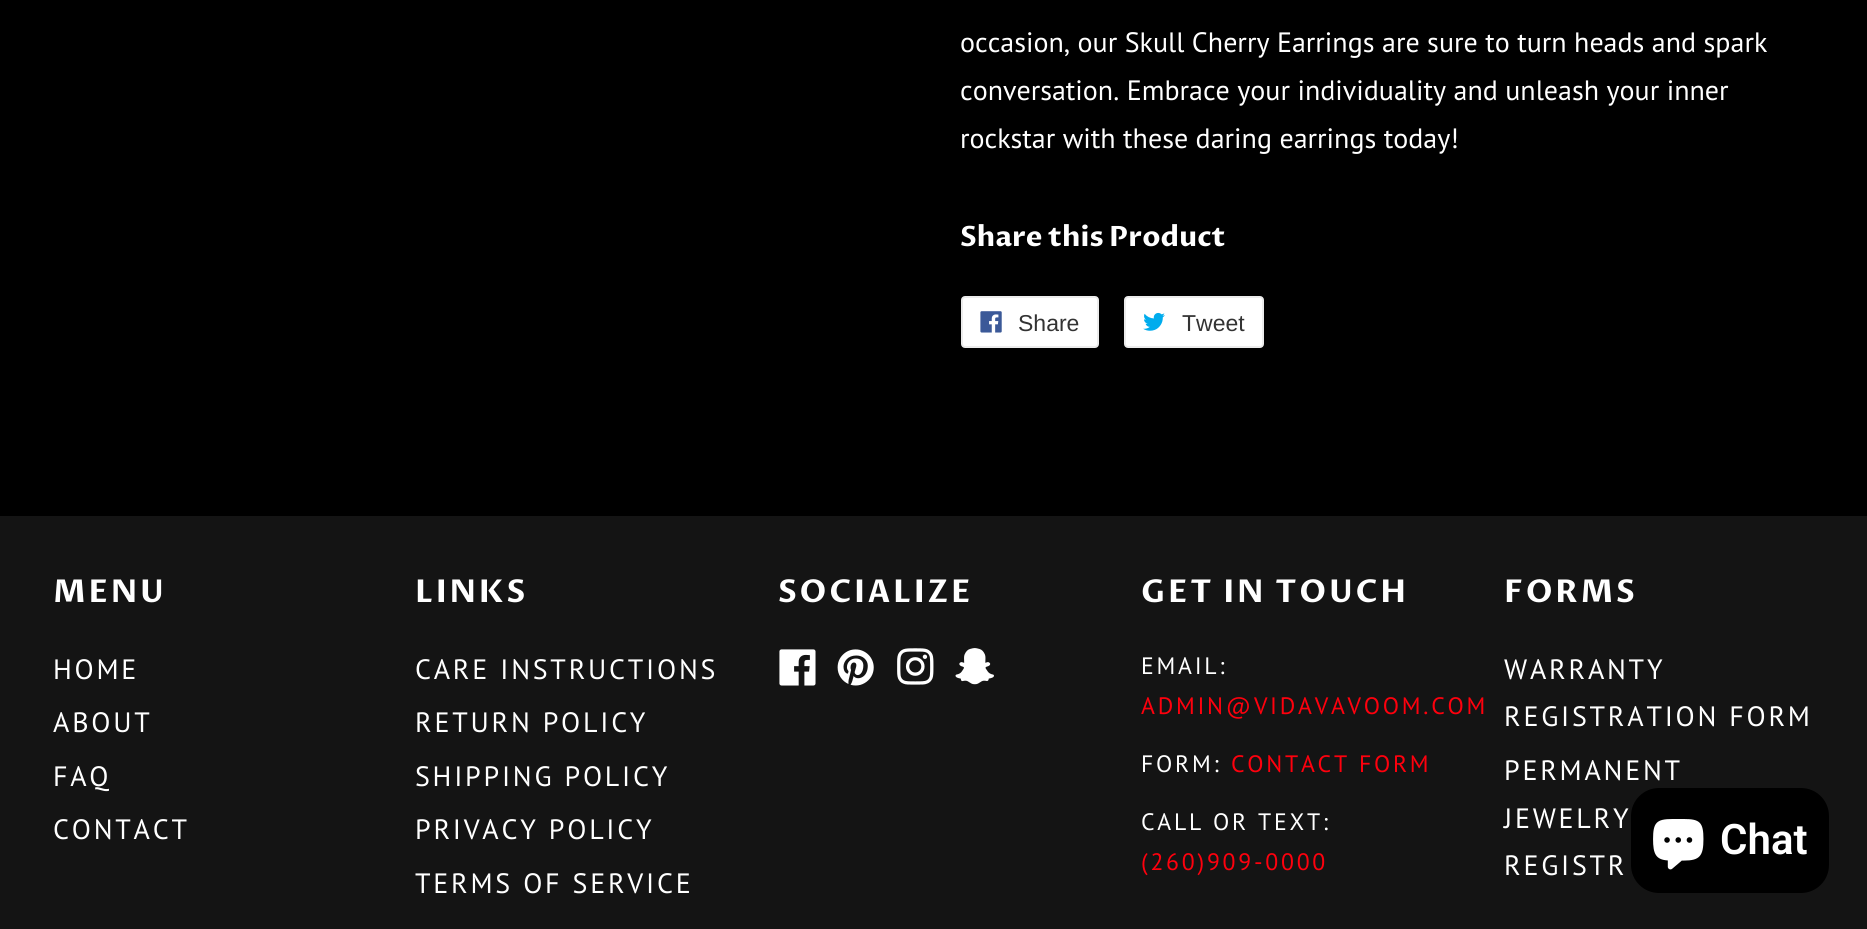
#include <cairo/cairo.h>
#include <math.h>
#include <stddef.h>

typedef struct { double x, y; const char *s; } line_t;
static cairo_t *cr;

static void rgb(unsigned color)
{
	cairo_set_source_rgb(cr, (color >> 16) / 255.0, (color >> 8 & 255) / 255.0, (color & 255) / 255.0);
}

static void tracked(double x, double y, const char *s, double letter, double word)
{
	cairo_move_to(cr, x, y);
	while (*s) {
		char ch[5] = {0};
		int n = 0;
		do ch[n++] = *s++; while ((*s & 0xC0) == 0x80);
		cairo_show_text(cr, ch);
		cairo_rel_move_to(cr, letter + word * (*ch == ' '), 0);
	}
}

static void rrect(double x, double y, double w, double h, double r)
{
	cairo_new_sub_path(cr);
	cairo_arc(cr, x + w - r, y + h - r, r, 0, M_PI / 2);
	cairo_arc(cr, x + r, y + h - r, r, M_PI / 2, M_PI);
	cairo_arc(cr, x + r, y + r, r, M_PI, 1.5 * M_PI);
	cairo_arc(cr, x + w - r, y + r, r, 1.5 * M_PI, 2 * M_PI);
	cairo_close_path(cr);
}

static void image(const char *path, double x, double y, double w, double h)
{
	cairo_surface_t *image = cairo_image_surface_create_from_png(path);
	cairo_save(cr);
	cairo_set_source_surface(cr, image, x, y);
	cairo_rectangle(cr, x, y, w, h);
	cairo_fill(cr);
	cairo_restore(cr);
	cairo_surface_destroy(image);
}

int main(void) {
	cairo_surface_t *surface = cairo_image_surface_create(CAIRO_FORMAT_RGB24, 1867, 929);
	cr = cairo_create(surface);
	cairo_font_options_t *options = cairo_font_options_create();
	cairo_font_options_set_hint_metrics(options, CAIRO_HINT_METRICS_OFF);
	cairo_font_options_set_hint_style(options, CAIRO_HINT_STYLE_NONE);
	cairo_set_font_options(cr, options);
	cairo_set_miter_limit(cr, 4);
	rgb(0x000000);
	cairo_paint(cr);
	rgb(0xffffff);
	rrect(962, 297, 136, 50, 3);
	cairo_fill_preserve(cr);
	rgb(0xececec);
	cairo_stroke(cr);
	image("img/1.png", 980, 311, 22, 22);
	rgb(0xffffff);
	rrect(1125, 297, 138, 50, 3);
	cairo_fill_preserve(cr);
	rgb(0xececec);
	cairo_stroke(cr);
	image("img/2.png", 1143, 312, 22, 19);
	rgb(0x141414);
	cairo_rectangle(cr, 0, 516, 1867, 413);
	cairo_fill(cr);
	image("img/3.png", 779, 649, 37, 37);
	image("img/4.png", 837, 649, 37, 37);
	image("img/5.png", 897, 648, 37, 37);
	image("img/6.png", 955, 648, 39, 37);
	rgb(0x000000);
	rrect(1631, 788, 198, 105, 28);
	cairo_fill(cr);
	image("img/7.png", 1653, 819, 51, 51);
	cairo_select_font_face(cr, "PT Sans", CAIRO_FONT_SLANT_NORMAL, CAIRO_FONT_WEIGHT_NORMAL);
	cairo_set_font_size(cr, 28);
	rgb(0xffffff);
	{
		static const line_t items[] = {
			{960, 52, "occasion, our Skull Cherry Earrings are sure to turn heads and spark"},
			{960, 100, "conversation. Embrace your individuality and unleash your inner"},
			{960, 148, "rockstar with these daring earrings today!"},
		};
		for (size_t i = 0; i < sizeof items / sizeof *items; i++) {
			cairo_move_to(cr, items[i].x, items[i].y);
			cairo_show_text(cr, items[i].s);
		}
	}
	cairo_select_font_face(cr, "Proza Libre", CAIRO_FONT_SLANT_NORMAL, CAIRO_FONT_WEIGHT_BOLD);
	cairo_move_to(cr, 960, 246);
	cairo_show_text(cr, "Share this Product");
	cairo_select_font_face(cr, "Liberation Sans", CAIRO_FONT_SLANT_NORMAL, CAIRO_FONT_WEIGHT_NORMAL);
	cairo_set_font_size(cr, 23);
	rgb(0x333333);
	cairo_move_to(cr, 1018, 331);
	cairo_show_text(cr, "Share");
	cairo_move_to(cr, 1182, 331);
	cairo_show_text(cr, "Tweet");
	cairo_select_font_face(cr, "Proza Libre", CAIRO_FONT_SLANT_NORMAL, CAIRO_FONT_WEIGHT_BOLD);
	cairo_set_font_size(cr, 31.5);
	rgb(0xffffff);
	tracked(53, 602, "MENU", 2.75, 0);
	cairo_select_font_face(cr, "PT Sans", CAIRO_FONT_SLANT_NORMAL, CAIRO_FONT_WEIGHT_NORMAL);
	cairo_set_font_size(cr, 28);
	{
		static const line_t items[] = {
			{53, 679, "HOME"},
			{53, 732, "ABOUT"},
			{53, 786, "FAQ"},
			{53, 839, "CONTACT"},
		};
		for (size_t i = 0; i < sizeof items / sizeof *items; i++) {
			tracked(items[i].x, items[i].y, items[i].s, 2.75, 0);
		}
	}
	cairo_select_font_face(cr, "Proza Libre", CAIRO_FONT_SLANT_NORMAL, CAIRO_FONT_WEIGHT_BOLD);
	cairo_set_font_size(cr, 31.5);
	tracked(415, 602, "LINKS", 2.75, 0);
	cairo_select_font_face(cr, "PT Sans", CAIRO_FONT_SLANT_NORMAL, CAIRO_FONT_WEIGHT_NORMAL);
	cairo_set_font_size(cr, 28);
	{
		static const line_t items[] = {
			{415, 679, "CARE INSTRUCTIONS"},
			{415, 732, "RETURN POLICY"},
			{415, 786, "SHIPPING POLICY"},
			{415, 839, "PRIVACY POLICY"},
			{415, 893, "TERMS OF SERVICE"},
		};
		for (size_t i = 0; i < sizeof items / sizeof *items; i++) {
			tracked(items[i].x, items[i].y, items[i].s, 2.75, 0);
		}
	}
	cairo_select_font_face(cr, "Proza Libre", CAIRO_FONT_SLANT_NORMAL, CAIRO_FONT_WEIGHT_BOLD);
	cairo_set_font_size(cr, 31.5);
	tracked(778, 602, "SOCIALIZE", 2.75, 0);
	tracked(1141, 602, "GET IN TOUCH", 2.75, 0);
	cairo_select_font_face(cr, "PT Sans", CAIRO_FONT_SLANT_NORMAL, CAIRO_FONT_WEIGHT_NORMAL);
	cairo_set_font_size(cr, 23.75);
	tracked(1141, 674, "EMAIL:", 2.75, 0);
	rgb(0xff000d);
	tracked(1141, 714, "ADMIN@VIDAVAVOOM.COM", 2.75, 0);
	rgb(0xffffff);
	tracked(1141, 772, "FORM:", 2.75, 0);
	rgb(0xff000d);
	tracked(1231, 772, "CONTACT FORM", 2.75, 0);
	rgb(0xffffff);
	tracked(1141, 830, "CALL OR TEXT:", 2.75, 0);
	rgb(0xff000d);
	tracked(1141, 870, "(260)909-0000", 2.75, 0);
	cairo_select_font_face(cr, "Proza Libre", CAIRO_FONT_SLANT_NORMAL, CAIRO_FONT_WEIGHT_BOLD);
	cairo_set_font_size(cr, 31.5);
	rgb(0xffffff);
	tracked(1504, 602, "FORMS", 2.75, 0);
	cairo_select_font_face(cr, "PT Sans", CAIRO_FONT_SLANT_NORMAL, CAIRO_FONT_WEIGHT_NORMAL);
	cairo_set_font_size(cr, 28);
	{
		static const line_t items[] = {
			{1504, 679, "WARRANTY"},
			{1504, 726, "REGISTRATION FORM"},
			{1504, 780, "PERMANENT"},
			{1504, 828, "JEWELRY"},
			{1504, 875, "REGISTR"},
		};
		for (size_t i = 0; i < sizeof items / sizeof *items; i++) {
			tracked(items[i].x, items[i].y, items[i].s, 2.75, 0);
		}
	}
	cairo_select_font_face(cr, "Roboto SemiBold", CAIRO_FONT_SLANT_NORMAL, CAIRO_FONT_WEIGHT_NORMAL);
	cairo_set_font_size(cr, 42);
	cairo_move_to(cr, 1720, 854);
	cairo_show_text(cr, "Chat");
	cairo_surface_write_to_png(surface, "page.png");
	cairo_font_options_destroy(options);
	cairo_destroy(cr);
	cairo_surface_destroy(surface);
	return 0;
}
